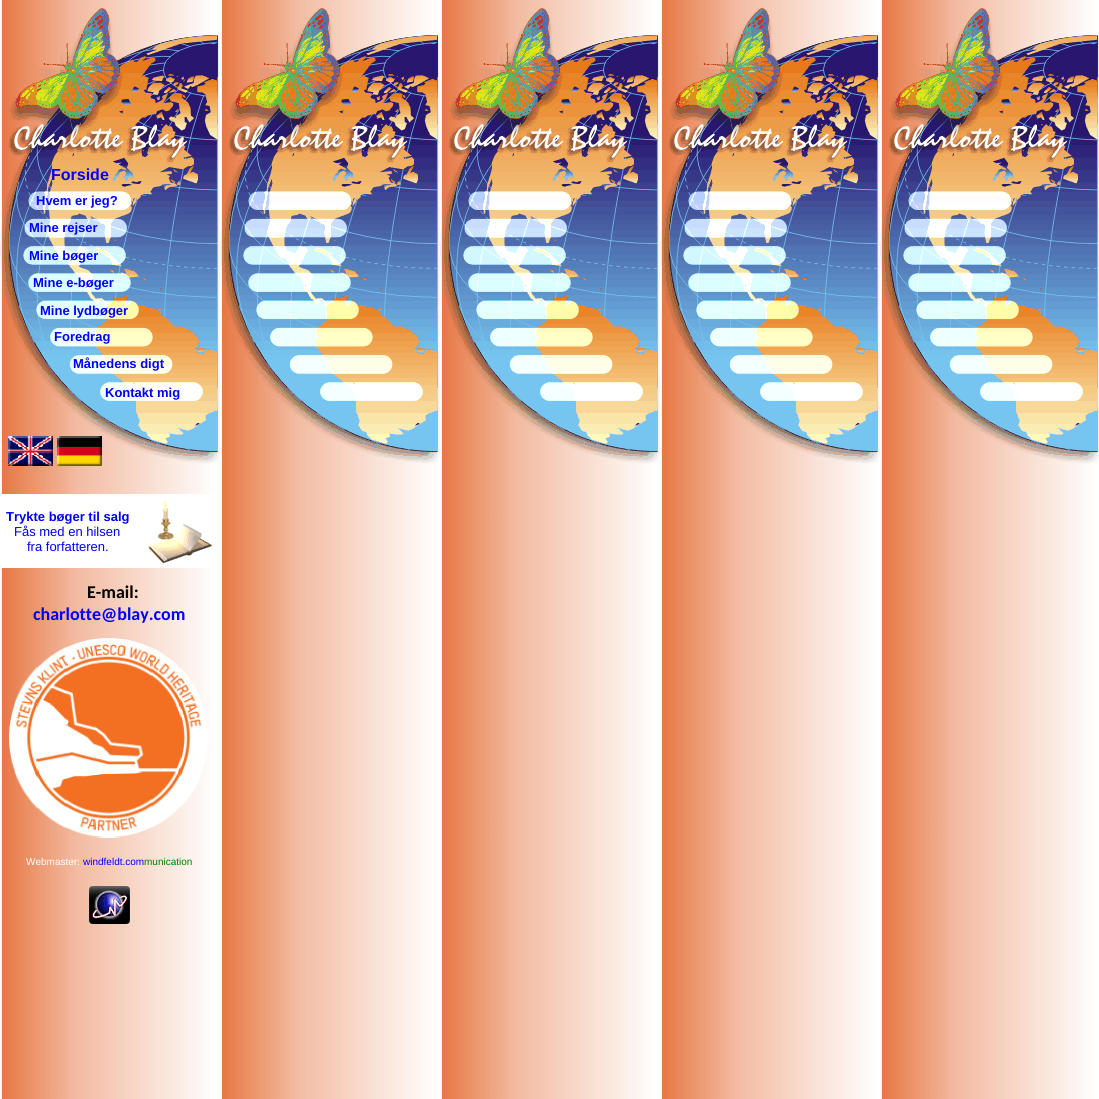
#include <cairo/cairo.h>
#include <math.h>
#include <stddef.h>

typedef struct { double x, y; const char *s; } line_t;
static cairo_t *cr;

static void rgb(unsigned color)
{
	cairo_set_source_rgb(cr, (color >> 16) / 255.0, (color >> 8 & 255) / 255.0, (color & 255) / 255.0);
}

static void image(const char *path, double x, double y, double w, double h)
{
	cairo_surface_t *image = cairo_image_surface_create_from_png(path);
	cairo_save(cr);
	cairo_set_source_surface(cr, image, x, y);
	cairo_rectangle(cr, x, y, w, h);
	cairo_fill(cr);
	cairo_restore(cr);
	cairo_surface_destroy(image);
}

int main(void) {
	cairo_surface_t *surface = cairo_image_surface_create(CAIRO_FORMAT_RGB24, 1099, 1099);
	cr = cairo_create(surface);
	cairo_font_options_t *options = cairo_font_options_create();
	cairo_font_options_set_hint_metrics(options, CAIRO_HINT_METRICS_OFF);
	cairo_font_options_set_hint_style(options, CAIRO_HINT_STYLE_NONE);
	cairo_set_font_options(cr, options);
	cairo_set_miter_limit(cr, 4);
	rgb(0xffffff);
	cairo_paint(cr);
	image("img/1.png", 0, 0, 1099, 1099);
	image("img/2.png", 8, 436, 45, 30);
	image("img/3.png", 57, 436, 45, 30);
	rgb(0xffffff);
	cairo_rectangle(cr, 1, 494, 213, 74);
	cairo_fill(cr);
	image("img/4.png", 148, 500, 64, 64);
	image("img/5.png", 9, 638, 200, 200);
	image("img/6.png", 89, 886, 41, 38);
	cairo_select_font_face(cr, "Liberation Sans", CAIRO_FONT_SLANT_NORMAL, CAIRO_FONT_WEIGHT_BOLD);
	cairo_set_font_size(cr, 16);
	rgb(0x0000ff);
	cairo_move_to(cr, 51, 180);
	cairo_show_text(cr, "Forside");
	cairo_set_font_size(cr, 13);
	{
		static const line_t items[] = {
			{36, 205, "Hvem er jeg?"},
			{29, 232, "Mine rejser"},
			{29, 260, "Mine bøger"},
			{33, 287, "Mine e-bøger"},
			{40, 315, "Mine lydbøger"},
			{54, 341, "Foredrag"},
			{73, 368, "Månedens digt"},
			{105, 397, "Kontakt mig"},
			{6, 521, "Trykte bøger til salg"},
		};
		for (size_t i = 0; i < sizeof items / sizeof *items; i++) {
			cairo_move_to(cr, items[i].x, items[i].y);
			cairo_show_text(cr, items[i].s);
		}
	}
	cairo_select_font_face(cr, "Liberation Sans", CAIRO_FONT_SLANT_NORMAL, CAIRO_FONT_WEIGHT_NORMAL);
	cairo_move_to(cr, 14, 536);
	cairo_show_text(cr, "Fås med en hilsen");
	cairo_move_to(cr, 27, 551);
	cairo_show_text(cr, "fra forfatteren.");
	cairo_select_font_face(cr, "Carlito", CAIRO_FONT_SLANT_NORMAL, CAIRO_FONT_WEIGHT_BOLD);
	cairo_set_font_size(cr, 18);
	rgb(0x000000);
	cairo_move_to(cr, 87, 598);
	cairo_show_text(cr, "E-mail:");
	rgb(0x0000ff);
	cairo_move_to(cr, 33, 620);
	cairo_show_text(cr, "charlotte@blay.com");
	cairo_select_font_face(cr, "Liberation Sans", CAIRO_FONT_SLANT_NORMAL, CAIRO_FONT_WEIGHT_NORMAL);
	cairo_set_font_size(cr, 10);
	rgb(0xffffff);
	cairo_move_to(cr, 26, 865);
	cairo_show_text(cr, "Webmaster:");
	rgb(0x0000ff);
	cairo_move_to(cr, 83, 865);
	cairo_show_text(cr, "windfeldt.com");
	rgb(0x008000);
	cairo_move_to(cr, 144, 865);
	cairo_show_text(cr, "munication");
	cairo_surface_write_to_png(surface, "page.png");
	cairo_font_options_destroy(options);
	cairo_destroy(cr);
	cairo_surface_destroy(surface);
	return 0;
}
